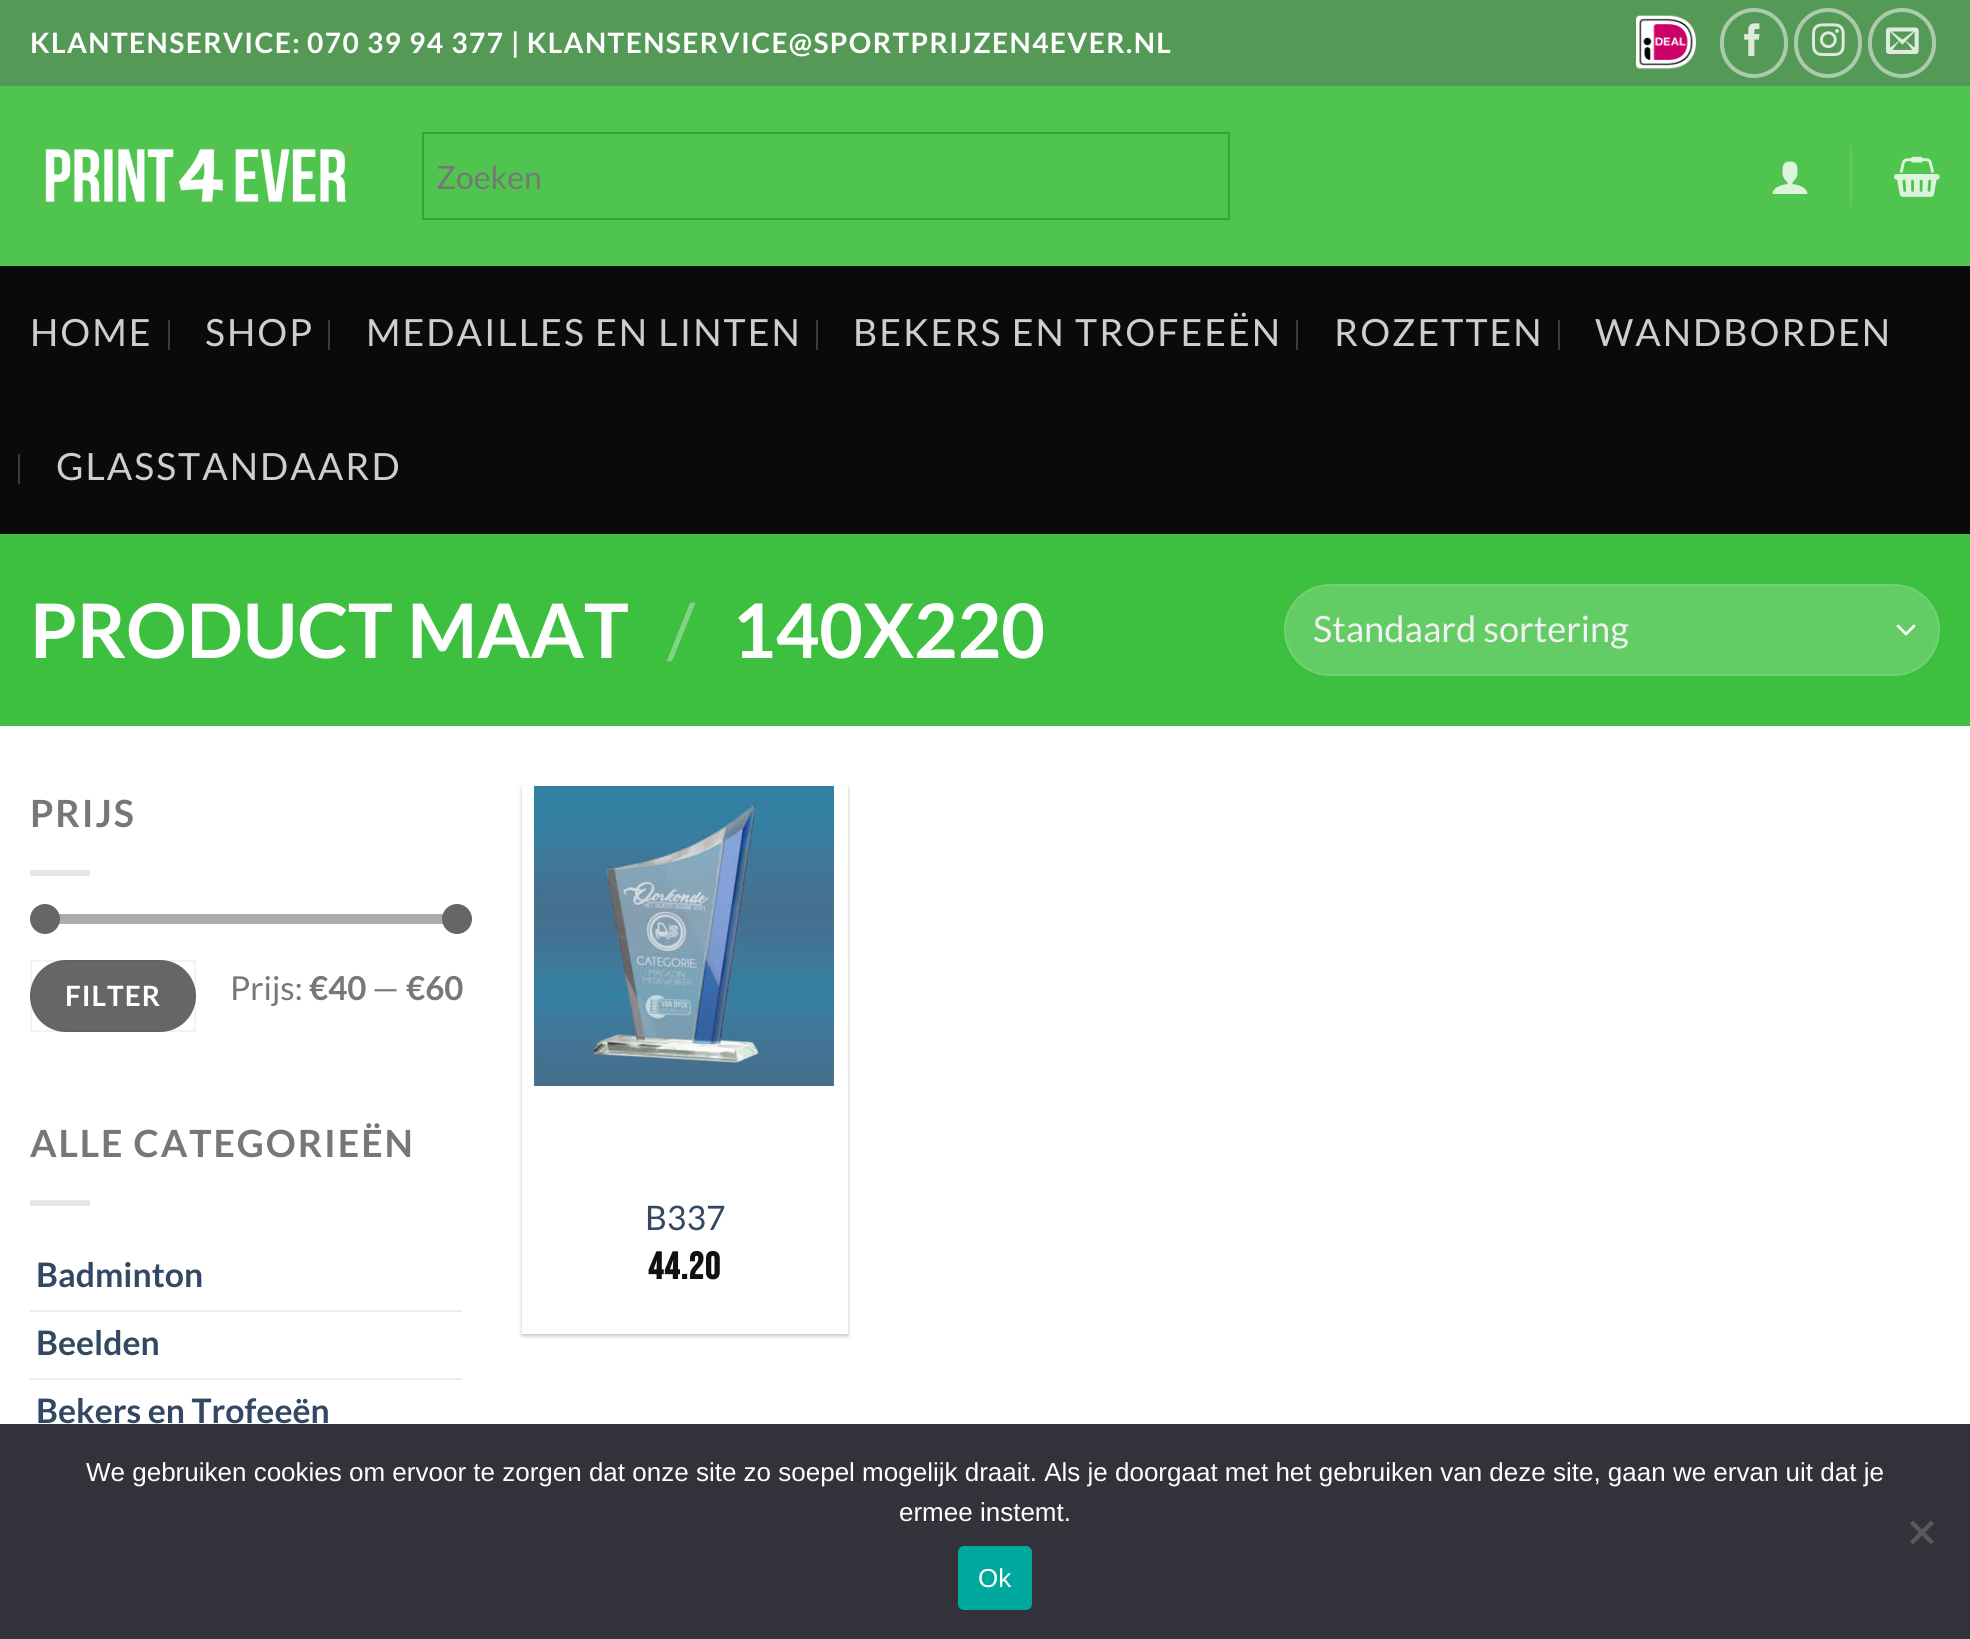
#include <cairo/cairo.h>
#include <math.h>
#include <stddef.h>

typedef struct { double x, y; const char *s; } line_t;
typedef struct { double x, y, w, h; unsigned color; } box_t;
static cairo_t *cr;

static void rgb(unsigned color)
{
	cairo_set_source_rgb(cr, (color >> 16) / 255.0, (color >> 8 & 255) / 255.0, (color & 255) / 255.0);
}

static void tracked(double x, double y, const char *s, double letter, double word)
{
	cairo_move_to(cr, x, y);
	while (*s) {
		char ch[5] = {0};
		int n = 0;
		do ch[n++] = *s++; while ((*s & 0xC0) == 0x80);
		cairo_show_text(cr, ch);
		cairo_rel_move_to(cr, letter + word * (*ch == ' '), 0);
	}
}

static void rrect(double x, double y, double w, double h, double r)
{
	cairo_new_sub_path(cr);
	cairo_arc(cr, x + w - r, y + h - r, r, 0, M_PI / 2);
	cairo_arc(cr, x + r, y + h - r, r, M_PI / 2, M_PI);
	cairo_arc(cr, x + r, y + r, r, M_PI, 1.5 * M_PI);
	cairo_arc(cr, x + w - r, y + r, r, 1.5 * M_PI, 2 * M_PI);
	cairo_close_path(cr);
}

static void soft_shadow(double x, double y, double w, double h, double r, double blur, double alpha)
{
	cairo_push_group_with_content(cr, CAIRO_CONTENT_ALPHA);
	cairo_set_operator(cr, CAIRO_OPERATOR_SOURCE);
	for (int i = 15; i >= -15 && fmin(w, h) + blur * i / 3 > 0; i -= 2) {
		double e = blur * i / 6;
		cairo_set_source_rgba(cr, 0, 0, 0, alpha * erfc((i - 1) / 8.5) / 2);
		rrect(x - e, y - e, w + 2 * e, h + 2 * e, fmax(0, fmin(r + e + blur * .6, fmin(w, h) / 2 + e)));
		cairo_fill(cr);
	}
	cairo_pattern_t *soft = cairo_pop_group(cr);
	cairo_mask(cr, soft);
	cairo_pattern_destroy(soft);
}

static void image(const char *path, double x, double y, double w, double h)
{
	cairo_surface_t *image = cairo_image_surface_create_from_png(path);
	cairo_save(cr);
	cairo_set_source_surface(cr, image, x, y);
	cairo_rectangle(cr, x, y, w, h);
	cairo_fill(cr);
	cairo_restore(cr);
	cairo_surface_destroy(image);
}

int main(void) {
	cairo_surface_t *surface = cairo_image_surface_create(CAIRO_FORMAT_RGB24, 1970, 1639);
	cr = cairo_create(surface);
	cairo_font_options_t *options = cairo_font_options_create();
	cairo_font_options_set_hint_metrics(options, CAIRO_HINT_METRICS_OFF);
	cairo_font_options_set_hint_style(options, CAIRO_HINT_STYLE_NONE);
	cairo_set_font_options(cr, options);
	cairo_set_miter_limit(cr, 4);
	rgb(0xffffff);
	cairo_paint(cr);
	rgb(0x559956);
	cairo_rectangle(cr, 0, 0, 1970, 86);
	cairo_fill(cr);
	image("img/1.png", 1636, 15, 60, 55);
	rrect(1722, 10, 64, 66, 32);
	rgb(0xaaccab);
	cairo_set_line_width(cr, 4);
	cairo_stroke(cr);
	image("img/2.png", 1744, 23, 16, 34);
	rrect(1796, 10, 64, 66, 32);
	cairo_stroke(cr);
	image("img/3.png", 1812, 23, 33, 34);
	rrect(1870, 10, 64, 66, 32);
	cairo_stroke(cr);
	image("img/4.png", 1886, 27, 33, 27);
	rgb(0x4fc550);
	cairo_rectangle(cr, 0, 86, 1970, 180);
	cairo_fill(cr);
	image("img/5.png", 40, 145, 312, 63);
	cairo_rectangle(cr, 423, 133, 806, 86);
	rgb(0x32a533);
	cairo_set_line_width(cr, 2);
	cairo_stroke(cr);
	image("img/6.png", 1772, 161, 36, 33);
	rgb(0x61cb62);
	cairo_rectangle(cr, 1850, 146, 2, 60);
	cairo_fill(cr);
	image("img/7.png", 1894, 156, 46, 41);
	{
		static const box_t items[] = {
			{0, 266, 1970, 268, 0x0a0a0a},
			{168, 320, 2, 30, 0x3b3b3b},
			{328, 320, 2, 30, 0x3b3b3b},
			{816, 320, 2, 30, 0x3b3b3b},
			{1296, 320, 2, 30, 0x3b3b3b},
			{1558, 320, 2, 30, 0x3b3b3b},
			{18, 454, 2, 30, 0x3b3b3b},
			{0, 534, 1970, 192, 0x3dbf3f},
		};
		for (size_t i = 0; i < sizeof items / sizeof *items; i++) {
			rgb(items[i].color);
			cairo_rectangle(cr, items[i].x, items[i].y, items[i].w, items[i].h);
			cairo_fill(cr);
		}
	}
	rgb(0x64cc65);
	rrect(1284, 584, 656, 92, 46);
	cairo_fill(cr);
	cairo_new_path(cr);
	cairo_move_to(cr, 1898, 626);
	cairo_line_to(cr, 1906, 634);
	cairo_line_to(cr, 1914, 626);
	rgb(0xffffff);
	cairo_set_line_width(cr, 2.7);
	cairo_set_line_cap(cr, CAIRO_LINE_CAP_ROUND);
	cairo_set_line_join(cr, CAIRO_LINE_JOIN_ROUND);
	cairo_stroke(cr);
	rrect(1285, 585, 654, 90, 45);
	cairo_set_source_rgba(cr, 1, 1, 1, 0.09);
	cairo_set_line_width(cr, 2);
	cairo_set_line_cap(cr, CAIRO_LINE_CAP_BUTT);
	cairo_set_line_join(cr, CAIRO_LINE_JOIN_MITER);
	cairo_stroke(cr);
	rgb(0xe6e6e6);
	cairo_rectangle(cr, 30, 870, 60, 6);
	cairo_fill(cr);
	rgb(0xf1f1f1);
	rrect(30, 914, 432, 10, 5);
	cairo_fill(cr);
	cairo_set_source_rgba(cr, 0.4, 0.4, 0.4, 0.5);
	rrect(30, 914, 432, 10, 5);
	cairo_fill(cr);
	rgb(0x666666);
	cairo_arc(cr, 45, 919, 15, 0, 2 * M_PI);
	cairo_fill(cr);
	cairo_arc(cr, 457, 919, 15, 0, 2 * M_PI);
	cairo_fill(cr);
	rrect(30, 960, 166, 72, 36);
	cairo_fill(cr);
	cairo_rectangle(cr, 31, 961, 164, 70);
	cairo_set_source_rgba(cr, 0, 0, 0, 0.05);
	cairo_stroke(cr);
	{
		static const box_t items[] = {
			{30, 1200, 60, 6, 0xe6e6e6},
			{30, 1310, 432, 2, 0xececec},
			{30, 1378, 432, 2, 0xececec},
		};
		for (size_t i = 0; i < sizeof items / sizeof *items; i++) {
			rgb(items[i].color);
			cairo_rectangle(cr, items[i].x, items[i].y, items[i].w, items[i].h);
			cairo_fill(cr);
		}
	}
	cairo_save(cr);
	cairo_set_fill_rule(cr, CAIRO_FILL_RULE_EVEN_ODD);
	cairo_new_path(cr);
	cairo_move_to(cr, 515, 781);
	cairo_line_to(cr, 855, 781);
	cairo_line_to(cr, 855, 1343);
	cairo_line_to(cr, 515, 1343);
	cairo_close_path(cr);
	cairo_move_to(cr, 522, 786);
	cairo_line_to(cr, 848, 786);
	cairo_line_to(cr, 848, 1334);
	cairo_line_to(cr, 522, 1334);
	cairo_close_path(cr);
	cairo_clip(cr);
	rgb(0x000000);
	soft_shadow(522, 788, 326, 548, 0, 2, 0.24);
	cairo_restore(cr);
	image("img/8.png", 534, 786, 300, 300);
	rgb(0x32323a);
	cairo_rectangle(cr, 0, 1424, 1970, 215);
	cairo_fill(cr);
	rgb(0x59595d);
	cairo_new_path(cr);
	cairo_move_to(cr, 1931, 1520.5);
	cairo_line_to(cr, 1934, 1523.5);
	cairo_line_to(cr, 1913, 1544.5);
	cairo_line_to(cr, 1910, 1541.5);
	cairo_close_path(cr);
	cairo_fill(cr);
	cairo_new_path(cr);
	cairo_move_to(cr, 1910, 1523.5);
	cairo_line_to(cr, 1913, 1520.5);
	cairo_line_to(cr, 1934, 1541.5);
	cairo_line_to(cr, 1931, 1544.5);
	cairo_close_path(cr);
	cairo_fill(cr);
	rgb(0x00a99d);
	rrect(958, 1546, 74, 64, 6);
	cairo_fill(cr);
	cairo_select_font_face(cr, "Lato", CAIRO_FONT_SLANT_NORMAL, CAIRO_FONT_WEIGHT_BOLD);
	cairo_set_font_size(cr, 28.1);
	rgb(0xffffff);
	tracked(30, 53, "KLANTENSERVICE:", 1.4, 0);
	tracked(307, 53, "070 39 94 377", 1.4, 0);
	tracked(511, 53, "| KLANTENSERVICE@SPORTPRIJZEN4EVER.NL", 1.4, -1);
	cairo_select_font_face(cr, "Lato", CAIRO_FONT_SLANT_NORMAL, CAIRO_FONT_WEIGHT_NORMAL);
	cairo_set_font_size(cr, 32);
	rgb(0x777777);
	cairo_move_to(cr, 436, 189);
	cairo_show_text(cr, "Zoeken");
	cairo_set_font_size(cr, 37.5);
	rgb(0xcecece);
	{
		static const line_t items[] = {
			{30, 346, "HOME"},
			{205, 346, "SHOP"},
			{366, 346, "MEDAILLES EN LINTEN"},
			{853, 346, "BEKERS EN TROFEEËN"},
			{1334, 346, "ROZETTEN"},
			{1595, 346, "WANDBORDEN"},
			{56, 480, "GLASSTANDAARD"},
		};
		for (size_t i = 0; i < sizeof items / sizeof *items; i++) {
			tracked(items[i].x, items[i].y, items[i].s, 2, 0);
		}
	}
	cairo_select_font_face(cr, "Lato", CAIRO_FONT_SLANT_NORMAL, CAIRO_FONT_WEIGHT_BOLD);
	cairo_set_font_size(cr, 75.25);
	rgb(0xffffff);
	cairo_move_to(cr, 30, 658);
	cairo_show_text(cr, "PRODUCT MAAT");
	cairo_select_font_face(cr, "Lato", CAIRO_FONT_SLANT_NORMAL, CAIRO_FONT_WEIGHT_NORMAL);
	rgb(0x81d582);
	cairo_move_to(cr, 667, 658);
	cairo_show_text(cr, "/");
	cairo_select_font_face(cr, "Lato", CAIRO_FONT_SLANT_NORMAL, CAIRO_FONT_WEIGHT_BOLD);
	rgb(0xffffff);
	cairo_move_to(cr, 732, 658);
	cairo_show_text(cr, "140X220");
	cairo_select_font_face(cr, "Lato", CAIRO_FONT_SLANT_NORMAL, CAIRO_FONT_WEIGHT_NORMAL);
	cairo_set_font_size(cr, 36.25);
	rgb(0xf1f1f1);
	cairo_move_to(cr, 1313, 642);
	cairo_show_text(cr, "Standaard sortering");
	cairo_select_font_face(cr, "Lato", CAIRO_FONT_SLANT_NORMAL, CAIRO_FONT_WEIGHT_BOLD);
	cairo_set_font_size(cr, 37.5);
	rgb(0x777777);
	tracked(30, 827, "PRIJS", 1.9, 0);
	cairo_set_font_size(cr, 28);
	rgb(0xffffff);
	tracked(65, 1006, "FILTER", 1, 0);
	cairo_select_font_face(cr, "Lato", CAIRO_FONT_SLANT_NORMAL, CAIRO_FONT_WEIGHT_NORMAL);
	cairo_set_font_size(cr, 33);
	rgb(0x777777);
	cairo_move_to(cr, 230, 1000);
	cairo_show_text(cr, "Prijs:");
	cairo_select_font_face(cr, "Lato", CAIRO_FONT_SLANT_NORMAL, CAIRO_FONT_WEIGHT_BOLD);
	cairo_move_to(cr, 309, 1000);
	cairo_show_text(cr, "€40");
	cairo_select_font_face(cr, "Lato", CAIRO_FONT_SLANT_NORMAL, CAIRO_FONT_WEIGHT_NORMAL);
	cairo_move_to(cr, 372, 1000);
	cairo_show_text(cr, "—");
	cairo_select_font_face(cr, "Lato", CAIRO_FONT_SLANT_NORMAL, CAIRO_FONT_WEIGHT_BOLD);
	cairo_move_to(cr, 406, 1000);
	cairo_show_text(cr, "€60");
	cairo_set_font_size(cr, 37.5);
	tracked(30, 1157, "ALLE CATEGORIEËN", 1.9, 0);
	cairo_set_font_size(cr, 33.75);
	rgb(0x334862);
	{
		static const line_t items[] = {
			{36, 1287, "Badminton"},
			{36, 1355, "Beelden"},
			{36, 1423, "Bekers en Trofeeën"},
		};
		for (size_t i = 0; i < sizeof items / sizeof *items; i++) {
			cairo_move_to(cr, items[i].x, items[i].y);
			cairo_show_text(cr, items[i].s);
		}
	}
	cairo_select_font_face(cr, "Lato", CAIRO_FONT_SLANT_NORMAL, CAIRO_FONT_WEIGHT_NORMAL);
	cairo_move_to(cr, 645, 1230);
	cairo_show_text(cr, "B337");
	cairo_select_font_face(cr, "Bebas Neue", CAIRO_FONT_SLANT_NORMAL, CAIRO_FONT_WEIGHT_BOLD);
	cairo_set_font_size(cr, 38);
	rgb(0x111111);
	tracked(648, 1279, "44.20", 1, 0);
	cairo_select_font_face(cr, "Liberation Sans", CAIRO_FONT_SLANT_NORMAL, CAIRO_FONT_WEIGHT_NORMAL);
	cairo_set_font_size(cr, 26);
	rgb(0xffffff);
	{
		static const line_t items[] = {
			{86, 1481, "We gebruiken cookies om ervoor te zorgen dat onze site zo soepel mogelijk draait. Als je doorgaat met het gebruiken van deze site, gaan we ervan uit dat je"},
			{899, 1521, "ermee instemt."},
			{978, 1587, "Ok"},
		};
		for (size_t i = 0; i < sizeof items / sizeof *items; i++) {
			cairo_move_to(cr, items[i].x, items[i].y);
			cairo_show_text(cr, items[i].s);
		}
	}
	cairo_surface_write_to_png(surface, "page.png");
	cairo_font_options_destroy(options);
	cairo_destroy(cr);
	cairo_surface_destroy(surface);
	return 0;
}
